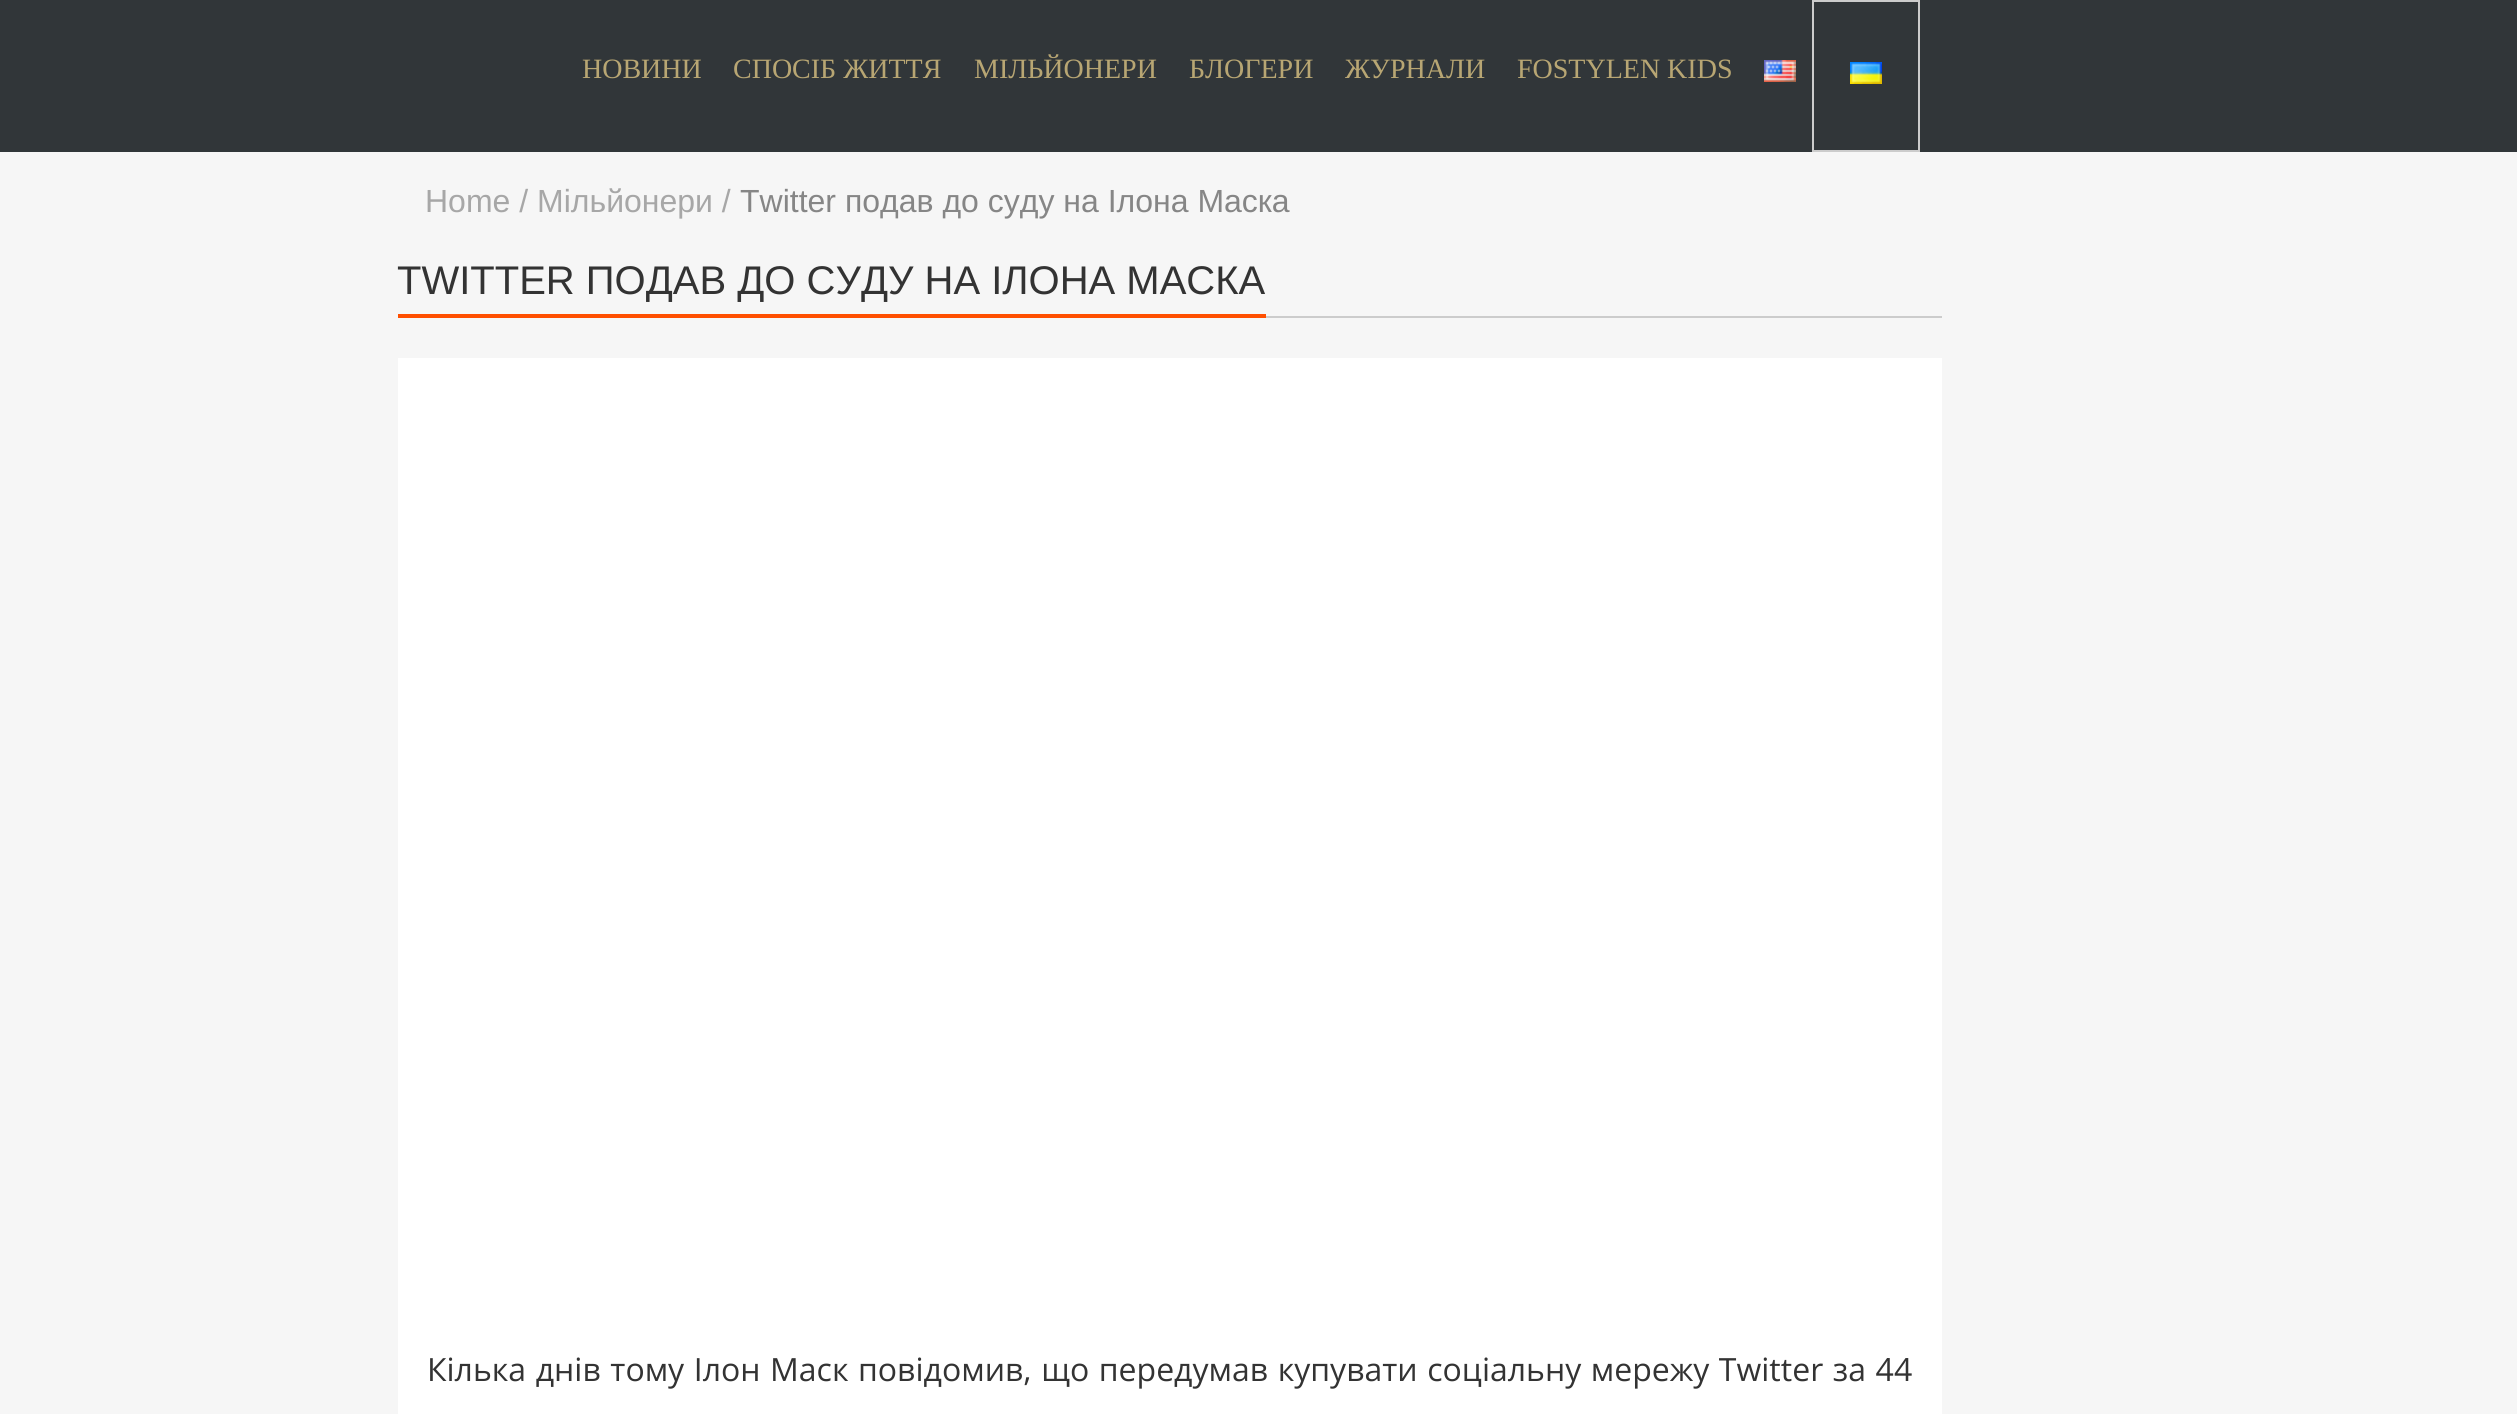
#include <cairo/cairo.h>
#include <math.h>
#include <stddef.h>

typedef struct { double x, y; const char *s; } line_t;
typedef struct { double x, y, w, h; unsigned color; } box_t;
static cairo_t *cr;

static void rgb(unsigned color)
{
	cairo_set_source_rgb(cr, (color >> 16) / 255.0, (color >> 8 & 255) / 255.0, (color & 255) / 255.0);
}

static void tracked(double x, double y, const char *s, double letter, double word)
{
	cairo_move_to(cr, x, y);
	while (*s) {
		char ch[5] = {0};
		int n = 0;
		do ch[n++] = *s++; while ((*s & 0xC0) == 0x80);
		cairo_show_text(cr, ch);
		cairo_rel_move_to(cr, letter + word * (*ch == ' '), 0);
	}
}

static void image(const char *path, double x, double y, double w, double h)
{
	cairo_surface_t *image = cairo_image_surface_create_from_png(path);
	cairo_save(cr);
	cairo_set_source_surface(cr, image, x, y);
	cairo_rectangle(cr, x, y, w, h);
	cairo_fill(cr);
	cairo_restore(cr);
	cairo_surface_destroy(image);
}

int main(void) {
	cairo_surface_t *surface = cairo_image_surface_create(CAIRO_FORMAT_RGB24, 2517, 1414);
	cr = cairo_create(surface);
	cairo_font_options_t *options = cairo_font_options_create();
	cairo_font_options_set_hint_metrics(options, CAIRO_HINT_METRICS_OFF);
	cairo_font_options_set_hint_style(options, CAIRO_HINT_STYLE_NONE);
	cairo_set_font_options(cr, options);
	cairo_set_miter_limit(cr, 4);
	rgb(0xf6f6f6);
	cairo_paint(cr);
	rgb(0x313639);
	cairo_rectangle(cr, 0, 0, 2517, 152);
	cairo_fill(cr);
	image("img/1.png", 1764, 60, 32, 22);
	cairo_rectangle(cr, 1813, 1, 106, 150);
	rgb(0xcccccc);
	cairo_stroke(cr);
	image("img/2.png", 1850, 62, 32, 22);
	{
		static const box_t items[] = {
			{1266, 316, 676, 2, 0xcccccc},
			{398, 314, 868, 4, 0xff4f00},
			{398, 358, 1544, 1056, 0xffffff},
		};
		for (size_t i = 0; i < sizeof items / sizeof *items; i++) {
			rgb(items[i].color);
			cairo_rectangle(cr, items[i].x, items[i].y, items[i].w, items[i].h);
			cairo_fill(cr);
		}
	}
	cairo_select_font_face(cr, "Liberation Serif", CAIRO_FONT_SLANT_NORMAL, CAIRO_FONT_WEIGHT_NORMAL);
	cairo_set_font_size(cr, 28);
	rgb(0xb8a673);
	{
		static const line_t items[] = {
			{582, 78, "НОВИНИ"},
			{733, 78, "СПОСІБ ЖИТТЯ"},
			{974, 78, "МІЛЬЙОНЕРИ"},
			{1189, 78, "БЛОГЕРИ"},
			{1345, 78, "ЖУРНАЛИ"},
			{1517, 78, "FOSTYLEN KIDS"},
		};
		for (size_t i = 0; i < sizeof items / sizeof *items; i++) {
			cairo_move_to(cr, items[i].x, items[i].y);
			cairo_show_text(cr, items[i].s);
		}
	}
	cairo_select_font_face(cr, "Liberation Sans", CAIRO_FONT_SLANT_NORMAL, CAIRO_FONT_WEIGHT_NORMAL);
	cairo_set_font_size(cr, 32);
	rgb(0xa7a7a7);
	cairo_move_to(cr, 425, 212);
	cairo_show_text(cr, "Home / Мільйонери /");
	rgb(0x868686);
	cairo_move_to(cr, 740, 212);
	cairo_show_text(cr, "Twitter подав до суду на Ілона Маска");
	cairo_set_font_size(cr, 40);
	rgb(0x333333);
	cairo_move_to(cr, 397, 294);
	cairo_show_text(cr, "TWITTER ПОДАВ ДО СУДУ НА ІЛОНА МАСКА");
	cairo_select_font_face(cr, "Open Sans", CAIRO_FONT_SLANT_NORMAL, CAIRO_FONT_WEIGHT_NORMAL);
	cairo_set_font_size(cr, 32);
	tracked(427, 1381, "Кілька днів тому Ілон Маск повідомив, що передумав купувати соціальну мережу Twitter за 44", 0, 1.25);
	cairo_surface_write_to_png(surface, "page.png");
	cairo_font_options_destroy(options);
	cairo_destroy(cr);
	cairo_surface_destroy(surface);
	return 0;
}
